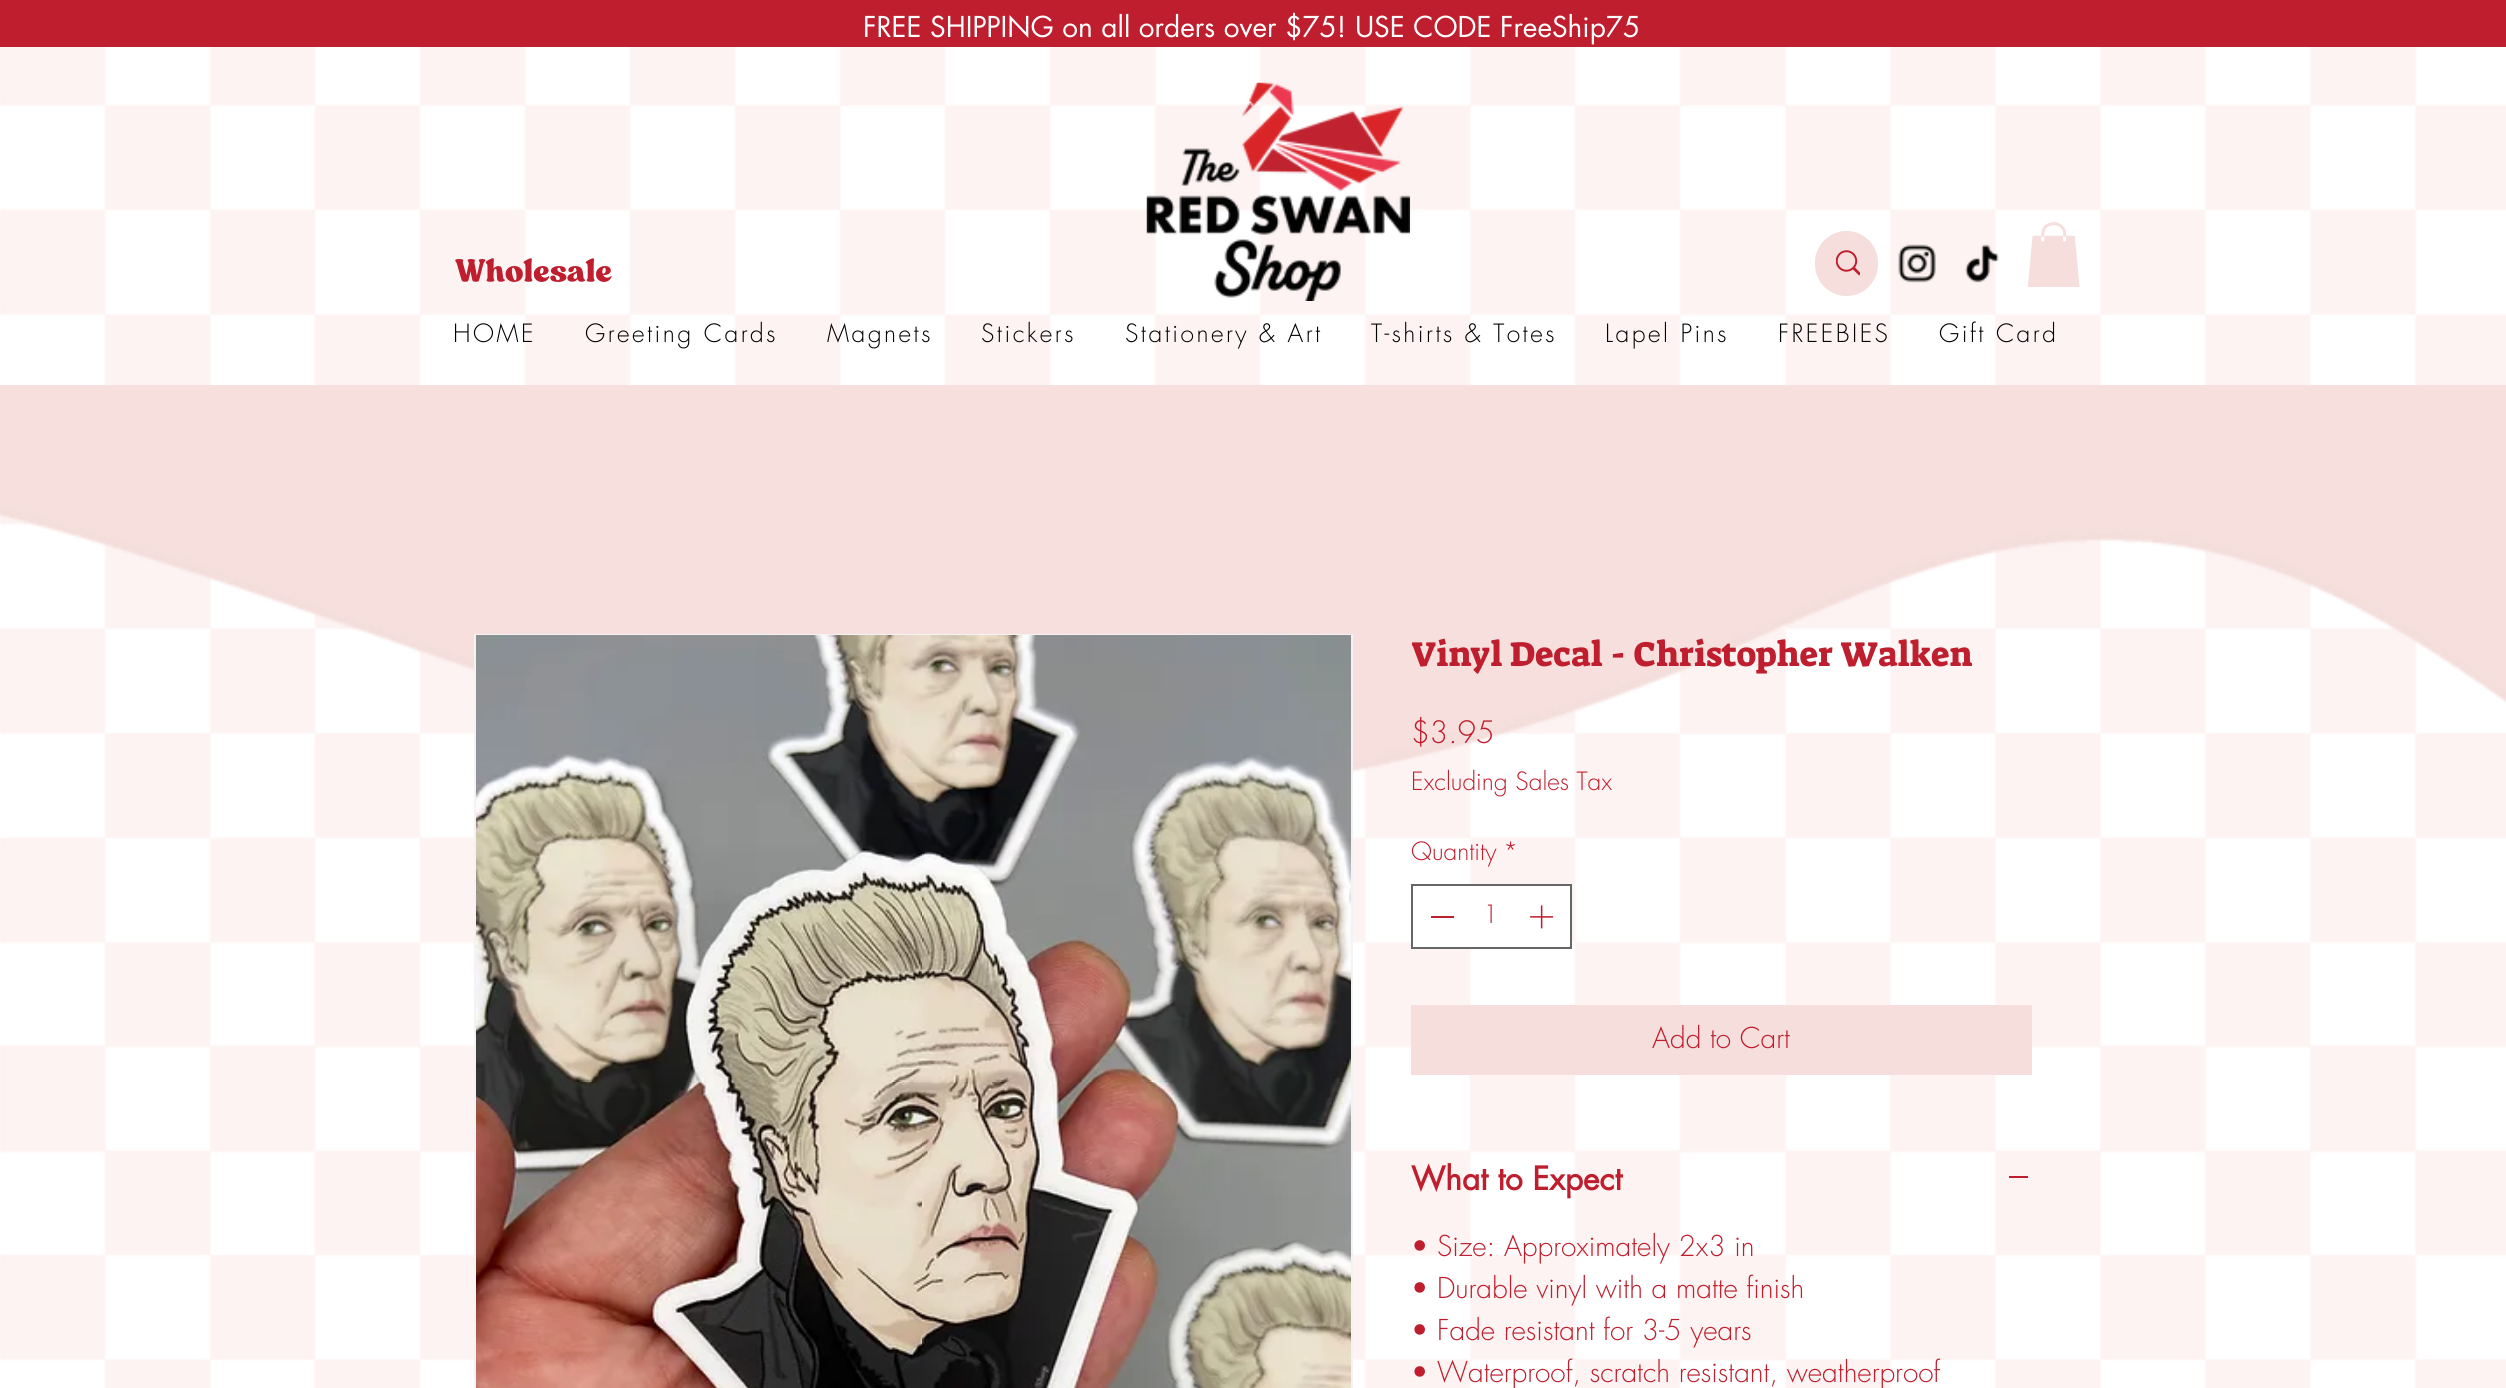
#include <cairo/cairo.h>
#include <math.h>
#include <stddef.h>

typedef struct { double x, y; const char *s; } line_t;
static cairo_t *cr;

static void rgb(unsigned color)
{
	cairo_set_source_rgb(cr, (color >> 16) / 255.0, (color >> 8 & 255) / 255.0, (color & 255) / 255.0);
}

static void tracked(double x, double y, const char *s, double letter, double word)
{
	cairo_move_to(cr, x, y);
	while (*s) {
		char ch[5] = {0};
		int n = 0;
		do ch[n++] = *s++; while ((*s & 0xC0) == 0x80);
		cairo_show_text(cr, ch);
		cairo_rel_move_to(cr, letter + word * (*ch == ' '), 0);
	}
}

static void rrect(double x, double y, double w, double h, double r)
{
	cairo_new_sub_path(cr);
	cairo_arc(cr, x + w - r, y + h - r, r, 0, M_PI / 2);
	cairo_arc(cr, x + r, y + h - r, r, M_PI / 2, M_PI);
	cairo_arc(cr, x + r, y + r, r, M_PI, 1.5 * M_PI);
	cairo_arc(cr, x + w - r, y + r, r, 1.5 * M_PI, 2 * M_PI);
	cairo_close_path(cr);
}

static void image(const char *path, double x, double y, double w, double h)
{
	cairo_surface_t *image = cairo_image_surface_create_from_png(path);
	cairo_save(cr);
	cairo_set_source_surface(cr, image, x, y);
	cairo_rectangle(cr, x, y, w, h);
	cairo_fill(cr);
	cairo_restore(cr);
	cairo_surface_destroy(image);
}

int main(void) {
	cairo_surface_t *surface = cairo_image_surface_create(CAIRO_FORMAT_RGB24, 2506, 1388);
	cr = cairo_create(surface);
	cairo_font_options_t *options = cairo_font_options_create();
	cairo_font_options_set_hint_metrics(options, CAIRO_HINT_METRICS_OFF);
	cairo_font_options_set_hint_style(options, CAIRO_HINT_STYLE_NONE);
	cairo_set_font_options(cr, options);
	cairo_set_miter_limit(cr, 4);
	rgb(0xffffff);
	cairo_paint(cr);
	rgb(0xbe1e2d);
	cairo_rectangle(cr, 0, 0, 2506, 47);
	cairo_fill(cr);
	image("img/10.png", 0, 47, 2506, 1341);
	image("img/1.png", 455, 258, 157, 24);
	image("img/2.png", 1146, 82, 265, 219);
	rgb(0xf5dedc);
	rrect(1815, 231, 63, 65, 31.5);
	cairo_fill(cr);
	image("img/3.png", 1836, 250, 24, 26);
	image("img/4.png", 1898, 244, 38, 39);
	image("img/5.png", 1965, 244, 34, 39);
	image("img/6.png", 2027, 222, 53, 65);
	image("img/7.png", 0, 385, 2506, 388);
	cairo_rectangle(cr, 475, 635, 877, 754);
	rgb(0xf3f3f3);
	cairo_stroke(cr);
	image("img/8.png", 476, 635, 875, 753);
	rgb(0xffffff);
	cairo_rectangle(cr, 1412, 885, 159, 63);
	cairo_fill_preserve(cr);
	rgb(0x666666);
	cairo_stroke(cr);
	rgb(0xbe1e2d);
	cairo_rectangle(cr, 1431, 916, 23, 2);
	cairo_fill(cr);
	image("img/9.png", 1530, 905, 24, 24);
	rgb(0xf5dedc);
	cairo_rectangle(cr, 1411, 1005, 621, 70);
	cairo_fill(cr);
	rgb(0xbe1e2d);
	cairo_rectangle(cr, 2009, 1176, 19, 2);
	cairo_fill(cr);
	cairo_select_font_face(cr, "futura", CAIRO_FONT_SLANT_NORMAL, CAIRO_FONT_WEIGHT_NORMAL);
	cairo_set_font_size(cr, 28);
	rgb(0xffffff);
	cairo_move_to(cr, 863, 37);
	cairo_show_text(cr, "FREE SHIPPING on all orders over $75! USE CODE FreeShip75");
	cairo_select_font_face(cr, "futura Light", CAIRO_FONT_SLANT_NORMAL, CAIRO_FONT_WEIGHT_NORMAL);
	cairo_set_font_size(cr, 24.5);
	rgb(0x000000);
	{
		static const line_t items[] = {
			{453, 342, "HOME"},
			{585, 342, "Greeting Cards"},
			{827, 342, "Magnets"},
			{981, 342, "Stickers"},
			{1125, 342, "Stationery & Art"},
			{1371, 342, "T-shirts & Totes"},
			{1605, 342, "Lapel Pins"},
			{1778, 342, "FREEBIES"},
			{1939, 342, "Gift Card"},
		};
		for (size_t i = 0; i < sizeof items / sizeof *items; i++) {
			tracked(items[i].x, items[i].y, items[i].s, 2.5, 0);
		}
	}
	cairo_select_font_face(cr, "Suez One", CAIRO_FONT_SLANT_NORMAL, CAIRO_FONT_WEIGHT_NORMAL);
	cairo_set_font_size(cr, 35);
	rgb(0xbe1e2d);
	cairo_move_to(cr, 1411, 666);
	cairo_show_text(cr, "Vinyl Decal - Christopher Walken");
	cairo_select_font_face(cr, "futura Light", CAIRO_FONT_SLANT_NORMAL, CAIRO_FONT_WEIGHT_NORMAL);
	cairo_set_font_size(cr, 30);
	cairo_move_to(cr, 1411, 743);
	cairo_show_text(cr, "$3.95");
	cairo_set_font_size(cr, 24.5);
	{
		static const line_t items[] = {
			{1411, 790, "Excluding Sales Tax"},
			{1411, 860, "Quantity"},
			{1503, 860, "*"},
			{1483, 923, "1"},
		};
		for (size_t i = 0; i < sizeof items / sizeof *items; i++) {
			cairo_move_to(cr, items[i].x, items[i].y);
			cairo_show_text(cr, items[i].s);
		}
	}
	cairo_set_font_size(cr, 28);
	cairo_move_to(cr, 1652, 1048);
	cairo_show_text(cr, "Add to Cart");
	cairo_select_font_face(cr, "futura", CAIRO_FONT_SLANT_NORMAL, CAIRO_FONT_WEIGHT_BOLD);
	cairo_set_font_size(cr, 31.5);
	cairo_move_to(cr, 1411, 1190);
	cairo_show_text(cr, "What to Expect");
	cairo_select_font_face(cr, "futura Light", CAIRO_FONT_SLANT_NORMAL, CAIRO_FONT_WEIGHT_NORMAL);
	cairo_set_font_size(cr, 28);
	{
		static const line_t items[] = {
			{1411, 1256, "• Size: Approximately 2x3 in"},
			{1411, 1298, "• Durable vinyl with a matte finish"},
			{1411, 1340, "• Fade resistant for 3-5 years"},
			{1411, 1382, "• Waterproof, scratch resistant, weatherproof"},
		};
		for (size_t i = 0; i < sizeof items / sizeof *items; i++) {
			cairo_move_to(cr, items[i].x, items[i].y);
			cairo_show_text(cr, items[i].s);
		}
	}
	cairo_surface_write_to_png(surface, "page.png");
	cairo_font_options_destroy(options);
	cairo_destroy(cr);
	cairo_surface_destroy(surface);
	return 0;
}
